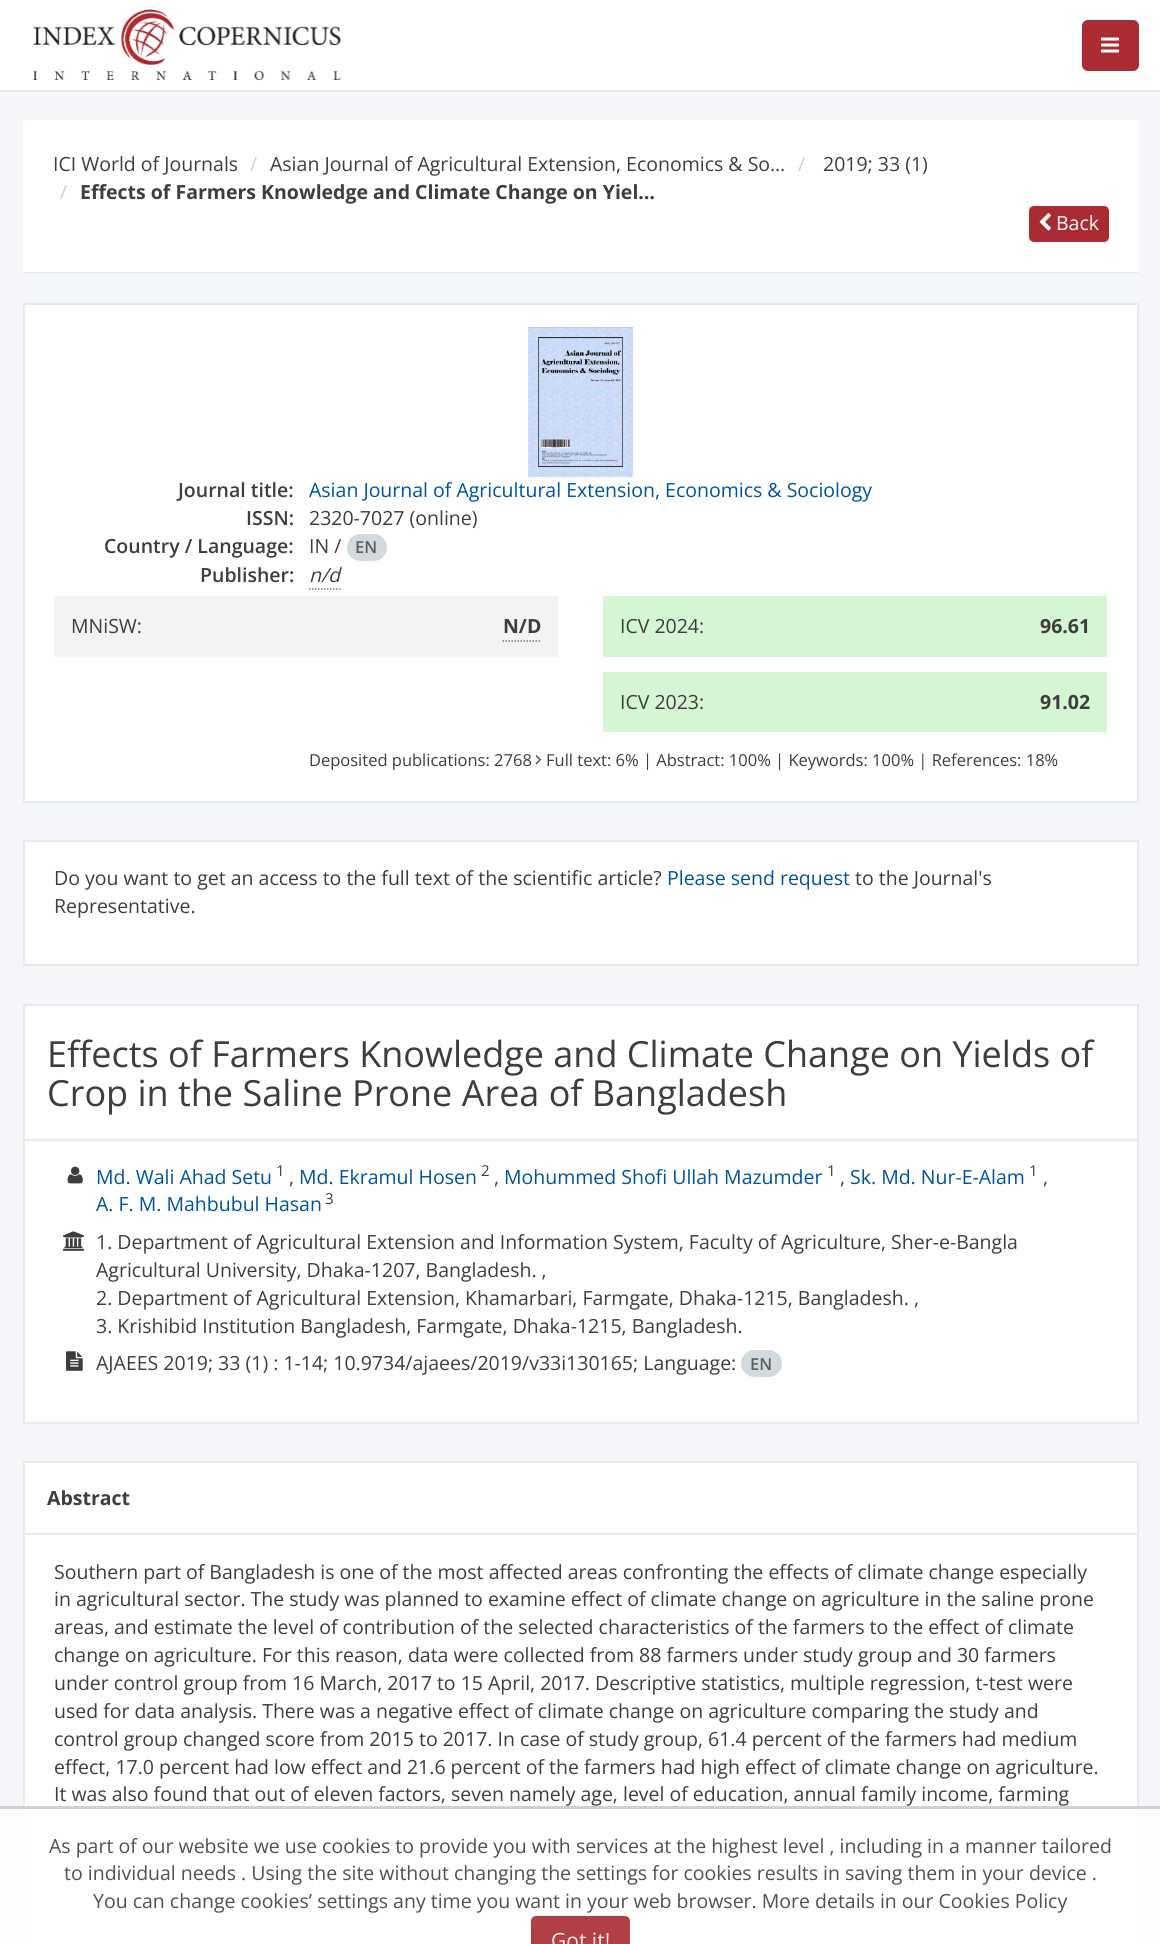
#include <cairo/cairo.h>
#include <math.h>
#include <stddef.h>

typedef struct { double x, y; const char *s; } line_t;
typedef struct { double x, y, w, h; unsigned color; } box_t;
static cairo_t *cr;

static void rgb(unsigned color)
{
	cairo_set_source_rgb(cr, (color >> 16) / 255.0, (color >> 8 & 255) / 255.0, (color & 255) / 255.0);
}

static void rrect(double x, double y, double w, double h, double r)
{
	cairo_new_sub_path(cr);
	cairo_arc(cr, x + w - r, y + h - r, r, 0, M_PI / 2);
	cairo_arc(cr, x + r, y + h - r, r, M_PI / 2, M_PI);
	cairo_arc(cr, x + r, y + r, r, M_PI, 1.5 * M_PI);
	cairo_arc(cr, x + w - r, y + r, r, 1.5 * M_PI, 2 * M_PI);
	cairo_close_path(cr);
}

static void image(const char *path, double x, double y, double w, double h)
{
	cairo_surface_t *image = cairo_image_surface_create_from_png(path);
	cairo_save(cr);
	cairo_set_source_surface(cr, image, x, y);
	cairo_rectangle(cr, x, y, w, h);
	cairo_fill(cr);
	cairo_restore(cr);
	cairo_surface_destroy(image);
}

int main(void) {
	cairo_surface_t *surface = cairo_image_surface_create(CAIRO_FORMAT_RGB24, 1160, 1944);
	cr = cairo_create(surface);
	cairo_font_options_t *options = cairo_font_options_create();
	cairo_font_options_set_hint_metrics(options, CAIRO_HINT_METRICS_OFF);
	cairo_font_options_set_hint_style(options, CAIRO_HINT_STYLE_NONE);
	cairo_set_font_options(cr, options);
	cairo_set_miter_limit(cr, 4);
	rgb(0xf4f6fa);
	cairo_paint(cr);
	rgb(0xffffff);
	cairo_rectangle(cr, 0, 0, 1160, 90);
	cairo_fill(cr);
	rgb(0xe7eaec);
	cairo_rectangle(cr, 0, 90, 1160, 2);
	cairo_fill(cr);
	image("img/1.png", 33, 9, 308, 72);
	rgb(0xaa2b31);
	rrect(1082, 20, 57, 51, 6);
	cairo_fill(cr);
	image("img/2.png", 1101, 37, 18, 16);
	rgb(0xffffff);
	cairo_rectangle(cr, 23, 120, 1116, 152);
	cairo_fill(cr);
	rgb(0xe7eaec);
	cairo_rectangle(cr, 23, 272, 1116, 1);
	cairo_fill(cr);
	rgb(0xaa2b31);
	rrect(1030, 207, 78, 34, 4);
	cairo_fill_preserve(cr);
	cairo_stroke(cr);
	image("img/3.png", 1039, 213, 12, 18);
	rgb(0xffffff);
	cairo_rectangle(cr, 24, 304, 1114, 498);
	cairo_fill_preserve(cr);
	rgb(0xe7eaec);
	cairo_stroke(cr);
	image("img/4.png", 528, 327, 105, 150);
	rgb(0xd1dade);
	rrect(347, 534, 40, 27, 13.5);
	cairo_fill(cr);
	cairo_new_path(cr);
	cairo_move_to(cr, 309, 589);
	cairo_line_to(cr, 340.5, 589);
	rgb(0x777777);
	cairo_set_line_width(cr, 1.5);
	cairo_set_dash(cr, (double[]){1.5, 1.5}, 2, 0);
	cairo_stroke(cr);
	rgb(0xf3f3f4);
	cairo_rectangle(cr, 54, 596, 504, 61);
	cairo_fill(cr);
	cairo_new_path(cr);
	cairo_move_to(cr, 502.5, 641);
	cairo_line_to(cr, 541.5, 641);
	rgb(0x777777);
	cairo_stroke(cr);
	rgb(0xd5f5d4);
	cairo_rectangle(cr, 603, 596, 504, 61);
	cairo_fill(cr);
	cairo_rectangle(cr, 603, 672, 504, 60);
	cairo_fill(cr);
	image("img/5.png", 535, 755, 6, 10);
	rgb(0xffffff);
	cairo_rectangle(cr, 24, 841, 1114, 124);
	cairo_fill_preserve(cr);
	rgb(0xe7eaec);
	cairo_set_line_width(cr, 2);
	cairo_set_dash(cr, NULL, 0, 0);
	cairo_stroke(cr);
	{
		static const box_t items[] = {
			{25, 1006, 1112, 133, 0xffffff},
			{23, 1004, 1116, 2, 0xe7eaec},
			{1137, 1004, 2, 135, 0xe7eaec},
			{23, 1004, 2, 135, 0xe7eaec},
		};
		for (size_t i = 0; i < sizeof items / sizeof *items; i++) {
			rgb(items[i].color);
			cairo_rectangle(cr, items[i].x, items[i].y, items[i].w, items[i].h);
			cairo_fill(cr);
		}
	}
	rgb(0xffffff);
	cairo_rectangle(cr, 24, 1140, 1114, 283);
	cairo_fill_preserve(cr);
	rgb(0xe7eaec);
	cairo_stroke(cr);
	image("img/6.png", 67, 1166, 16, 18);
	image("img/7.png", 63, 1231, 21, 20);
	image("img/8.png", 66, 1351, 17, 20);
	rgb(0xd1dade);
	rrect(741, 1350, 41, 27, 13.5);
	cairo_fill(cr);
	{
		static const box_t items[] = {
			{25, 1463, 1112, 70, 0xffffff},
			{23, 1461, 1116, 2, 0xe7eaec},
			{1137, 1461, 2, 72, 0xe7eaec},
			{23, 1461, 2, 72, 0xe7eaec},
		};
		for (size_t i = 0; i < sizeof items / sizeof *items; i++) {
			rgb(items[i].color);
			cairo_rectangle(cr, items[i].x, items[i].y, items[i].w, items[i].h);
			cairo_fill(cr);
		}
	}
	rgb(0xffffff);
	cairo_rectangle(cr, 24, 1534, 1114, 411);
	cairo_fill_preserve(cr);
	rgb(0xe7eaec);
	cairo_stroke(cr);
	cairo_set_source_rgba(cr, 1, 1, 1, 0.9);
	cairo_rectangle(cr, 0, 1809, 1160, 135);
	cairo_fill(cr);
	rgb(0xd1d1d1);
	cairo_rectangle(cr, 0, 1806, 1160, 3);
	cairo_fill(cr);
	cairo_set_source_rgba(cr, 0.667, 0.169, 0.192, 0.9);
	rrect(531, 1916, 99, 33, 5);
	cairo_fill(cr);
	cairo_select_font_face(cr, "Open Sans", CAIRO_FONT_SLANT_NORMAL, CAIRO_FONT_WEIGHT_NORMAL);
	cairo_set_font_size(cr, 19.5);
	rgb(0x3d3d3d);
	cairo_move_to(cr, 53, 171);
	cairo_show_text(cr, "ICI World of Journals");
	rgb(0xcccccc);
	cairo_move_to(cr, 250, 171);
	cairo_show_text(cr, "/");
	rgb(0x3d3d3d);
	cairo_move_to(cr, 270, 171);
	cairo_show_text(cr, "Asian Journal of Agricultural Extension, Economics & So…");
	rgb(0xcccccc);
	cairo_move_to(cr, 798, 171);
	cairo_show_text(cr, "/");
	rgb(0x3d3d3d);
	cairo_move_to(cr, 823, 171);
	cairo_show_text(cr, "2019; 33 (1)");
	rgb(0xcccccc);
	cairo_move_to(cr, 60, 199);
	cairo_show_text(cr, "/");
	cairo_select_font_face(cr, "Open Sans", CAIRO_FONT_SLANT_NORMAL, CAIRO_FONT_WEIGHT_BOLD);
	rgb(0x3d3d3d);
	cairo_move_to(cr, 80, 199);
	cairo_show_text(cr, "Effects of Farmers Knowledge and Climate Change on Yiel…");
	cairo_select_font_face(cr, "Open Sans", CAIRO_FONT_SLANT_NORMAL, CAIRO_FONT_WEIGHT_NORMAL);
	rgb(0xffffff);
	cairo_move_to(cr, 1056, 230);
	cairo_show_text(cr, "Back");
	cairo_select_font_face(cr, "Open Sans SemiBold", CAIRO_FONT_SLANT_NORMAL, CAIRO_FONT_WEIGHT_NORMAL);
	rgb(0x3d3d3d);
	cairo_move_to(cr, 178, 497);
	cairo_show_text(cr, "Journal title:");
	cairo_select_font_face(cr, "Open Sans", CAIRO_FONT_SLANT_NORMAL, CAIRO_FONT_WEIGHT_NORMAL);
	rgb(0x00539b);
	cairo_move_to(cr, 309, 497);
	cairo_show_text(cr, "Asian Journal of Agricultural Extension, Economics & Sociology");
	cairo_select_font_face(cr, "Open Sans SemiBold", CAIRO_FONT_SLANT_NORMAL, CAIRO_FONT_WEIGHT_NORMAL);
	rgb(0x3d3d3d);
	cairo_move_to(cr, 246, 525);
	cairo_show_text(cr, "ISSN:");
	cairo_select_font_face(cr, "Open Sans", CAIRO_FONT_SLANT_NORMAL, CAIRO_FONT_WEIGHT_NORMAL);
	cairo_move_to(cr, 309, 525);
	cairo_show_text(cr, "2320-7027 (online)");
	cairo_select_font_face(cr, "Open Sans SemiBold", CAIRO_FONT_SLANT_NORMAL, CAIRO_FONT_WEIGHT_NORMAL);
	cairo_move_to(cr, 104, 553);
	cairo_show_text(cr, "Country / Language:");
	cairo_select_font_face(cr, "Open Sans", CAIRO_FONT_SLANT_NORMAL, CAIRO_FONT_WEIGHT_NORMAL);
	cairo_move_to(cr, 309, 553);
	cairo_show_text(cr, "IN /");
	cairo_select_font_face(cr, "Open Sans SemiBold", CAIRO_FONT_SLANT_NORMAL, CAIRO_FONT_WEIGHT_NORMAL);
	cairo_set_font_size(cr, 16.5);
	rgb(0x5e5e5e);
	cairo_move_to(cr, 355, 553);
	cairo_show_text(cr, "EN");
	cairo_set_font_size(cr, 19.5);
	rgb(0x3d3d3d);
	cairo_move_to(cr, 200, 582);
	cairo_show_text(cr, "Publisher:");
	cairo_select_font_face(cr, "Open Sans", CAIRO_FONT_SLANT_ITALIC, CAIRO_FONT_WEIGHT_NORMAL);
	cairo_move_to(cr, 309, 582);
	cairo_show_text(cr, "n/d");
	cairo_select_font_face(cr, "Open Sans", CAIRO_FONT_SLANT_NORMAL, CAIRO_FONT_WEIGHT_NORMAL);
	cairo_move_to(cr, 71, 633);
	cairo_show_text(cr, "MNiSW:");
	cairo_select_font_face(cr, "Open Sans", CAIRO_FONT_SLANT_NORMAL, CAIRO_FONT_WEIGHT_BOLD);
	cairo_move_to(cr, 503, 633);
	cairo_show_text(cr, "N/D");
	cairo_select_font_face(cr, "Open Sans", CAIRO_FONT_SLANT_NORMAL, CAIRO_FONT_WEIGHT_NORMAL);
	cairo_move_to(cr, 620, 633);
	cairo_show_text(cr, "ICV 2024:");
	cairo_select_font_face(cr, "Open Sans", CAIRO_FONT_SLANT_NORMAL, CAIRO_FONT_WEIGHT_BOLD);
	cairo_move_to(cr, 1040, 633);
	cairo_show_text(cr, "96.61");
	cairo_select_font_face(cr, "Open Sans", CAIRO_FONT_SLANT_NORMAL, CAIRO_FONT_WEIGHT_NORMAL);
	cairo_move_to(cr, 620, 709);
	cairo_show_text(cr, "ICV 2023:");
	cairo_select_font_face(cr, "Open Sans", CAIRO_FONT_SLANT_NORMAL, CAIRO_FONT_WEIGHT_BOLD);
	cairo_move_to(cr, 1040, 709);
	cairo_show_text(cr, "91.02");
	cairo_select_font_face(cr, "Open Sans", CAIRO_FONT_SLANT_NORMAL, CAIRO_FONT_WEIGHT_NORMAL);
	cairo_set_font_size(cr, 16.5);
	cairo_move_to(cr, 309, 766);
	cairo_show_text(cr, "Deposited publications: 2768");
	cairo_move_to(cr, 546, 766);
	cairo_show_text(cr, "Full text: 6% | Abstract: 100% | Keywords: 100% | References: 18%");
	cairo_set_font_size(cr, 19.5);
	cairo_move_to(cr, 54, 885);
	cairo_show_text(cr, "Do you want to get an access to the full text of the scientific article?");
	rgb(0x00539b);
	cairo_move_to(cr, 667, 885);
	cairo_show_text(cr, "Please send request");
	rgb(0x3d3d3d);
	cairo_move_to(cr, 855, 885);
	cairo_show_text(cr, "to the Journal's");
	cairo_move_to(cr, 54, 913);
	cairo_show_text(cr, "Representative.");
	cairo_set_font_size(cr, 36);
	cairo_move_to(cr, 47, 1067);
	cairo_show_text(cr, "Effects of Farmers Knowledge and Climate Change on Yields of");
	cairo_move_to(cr, 47, 1106);
	cairo_show_text(cr, "Crop in the Saline Prone Area of Bangladesh");
	cairo_set_font_size(cr, 19.5);
	rgb(0x00539b);
	cairo_move_to(cr, 96, 1184);
	cairo_show_text(cr, "Md. Wali Ahad Setu");
	cairo_set_font_size(cr, 15);
	rgb(0x3d3d3d);
	cairo_move_to(cr, 276, 1176);
	cairo_show_text(cr, "1");
	cairo_set_font_size(cr, 19.5);
	cairo_move_to(cr, 289, 1184);
	cairo_show_text(cr, ",");
	rgb(0x00539b);
	cairo_move_to(cr, 299, 1184);
	cairo_show_text(cr, "Md. Ekramul Hosen");
	cairo_set_font_size(cr, 15);
	rgb(0x3d3d3d);
	cairo_move_to(cr, 481, 1176);
	cairo_show_text(cr, "2");
	cairo_set_font_size(cr, 19.5);
	cairo_move_to(cr, 494, 1184);
	cairo_show_text(cr, ",");
	rgb(0x00539b);
	cairo_move_to(cr, 504, 1184);
	cairo_show_text(cr, "Mohummed Shofi Ullah Mazumder");
	cairo_set_font_size(cr, 15);
	rgb(0x3d3d3d);
	cairo_move_to(cr, 827, 1176);
	cairo_show_text(cr, "1");
	cairo_set_font_size(cr, 19.5);
	cairo_move_to(cr, 840, 1184);
	cairo_show_text(cr, ",");
	rgb(0x00539b);
	cairo_move_to(cr, 850, 1184);
	cairo_show_text(cr, "Sk. Md. Nur-E-Alam");
	cairo_set_font_size(cr, 15);
	rgb(0x3d3d3d);
	cairo_move_to(cr, 1029, 1176);
	cairo_show_text(cr, "1");
	cairo_set_font_size(cr, 19.5);
	cairo_move_to(cr, 1043, 1184);
	cairo_show_text(cr, ",");
	rgb(0x00539b);
	cairo_move_to(cr, 96, 1211);
	cairo_show_text(cr, "A. F. M. Mahbubul Hasan");
	cairo_set_font_size(cr, 15);
	rgb(0x3d3d3d);
	cairo_move_to(cr, 325, 1204);
	cairo_show_text(cr, "3");
	cairo_set_font_size(cr, 19.5);
	{
		static const line_t items[] = {
			{96, 1249, "1. Department of Agricultural Extension and Information System, Faculty of Agriculture, Sher-e-Bangla"},
			{96, 1277, "Agricultural University, Dhaka-1207, Bangladesh. ,"},
			{96, 1305, "2. Department of Agricultural Extension, Khamarbari, Farmgate, Dhaka-1215, Bangladesh. ,"},
			{96, 1333, "3. Krishibid Institution Bangladesh, Farmgate, Dhaka-1215, Bangladesh."},
			{96, 1370, "AJAEES 2019; 33 (1) : 1-14; 10.9734/ajaees/2019/v33i130165; Language:"},
		};
		for (size_t i = 0; i < sizeof items / sizeof *items; i++) {
			cairo_move_to(cr, items[i].x, items[i].y);
			cairo_show_text(cr, items[i].s);
		}
	}
	cairo_select_font_face(cr, "Open Sans SemiBold", CAIRO_FONT_SLANT_NORMAL, CAIRO_FONT_WEIGHT_NORMAL);
	cairo_set_font_size(cr, 16.5);
	rgb(0x5e5e5e);
	cairo_move_to(cr, 750, 1370);
	cairo_show_text(cr, "EN");
	cairo_select_font_face(cr, "Open Sans", CAIRO_FONT_SLANT_NORMAL, CAIRO_FONT_WEIGHT_BOLD);
	cairo_set_font_size(cr, 19.5);
	rgb(0x3d3d3d);
	cairo_move_to(cr, 47, 1505);
	cairo_show_text(cr, "Abstract");
	cairo_select_font_face(cr, "Open Sans", CAIRO_FONT_SLANT_NORMAL, CAIRO_FONT_WEIGHT_NORMAL);
	{
		static const line_t items[] = {
			{54, 1579, "Southern part of Bangladesh is one of the most affected areas confronting the effects of climate change especially"},
			{54, 1606, "in agricultural sector. The study was planned to examine effect of climate change on agriculture in the saline prone"},
			{54, 1634, "areas, and estimate the level of contribution of the selected characteristics of the farmers to the effect of climate"},
			{54, 1662, "change on agriculture. For this reason, data were collected from 88 farmers under study group and 30 farmers"},
			{54, 1690, "under control group from 16 March, 2017 to 15 April, 2017. Descriptive statistics, multiple regression, t-test were"},
			{54, 1718, "used for data analysis. There was a negative effect of climate change on agriculture comparing the study and"},
			{54, 1746, "control group changed score from 2015 to 2017. In case of study group, 61.4 percent of the farmers had medium"},
			{54, 1774, "effect, 17.0 percent had low effect and 21.6 percent of the farmers had high effect of climate change on agriculture."},
			{54, 1801, "It was also found that out of eleven factors, seven namely age, level of education, annual family income, farming"},
		};
		for (size_t i = 0; i < sizeof items / sizeof *items; i++) {
			cairo_move_to(cr, items[i].x, items[i].y);
			cairo_show_text(cr, items[i].s);
		}
	}
	rgb(0x505050);
	{
		static const line_t items[] = {
			{49, 1853, "As part of our website we use cookies to provide you with services at the highest level , including in a manner tailored"},
			{64, 1880, "to individual needs . Using the site without changing the settings for cookies results in saving them in your device ."},
			{93, 1908, "You can change cookies’ settings any time you want in your web browser. More details in our Cookies Policy"},
		};
		for (size_t i = 0; i < sizeof items / sizeof *items; i++) {
			cairo_move_to(cr, items[i].x, items[i].y);
			cairo_show_text(cr, items[i].s);
		}
	}
	cairo_set_font_size(cr, 21);
	rgb(0xf7ecec);
	cairo_move_to(cr, 551, 1948);
	cairo_show_text(cr, "Got it!");
	cairo_surface_write_to_png(surface, "page.png");
	cairo_font_options_destroy(options);
	cairo_destroy(cr);
	cairo_surface_destroy(surface);
	return 0;
}
